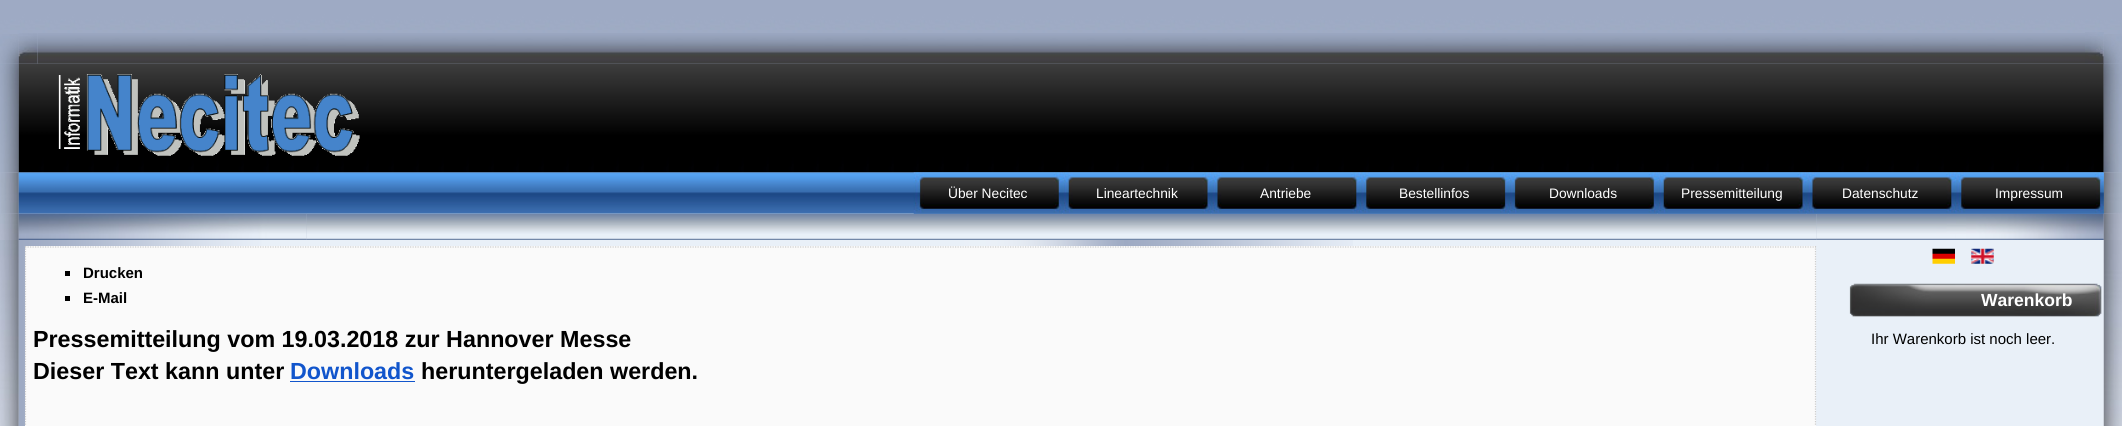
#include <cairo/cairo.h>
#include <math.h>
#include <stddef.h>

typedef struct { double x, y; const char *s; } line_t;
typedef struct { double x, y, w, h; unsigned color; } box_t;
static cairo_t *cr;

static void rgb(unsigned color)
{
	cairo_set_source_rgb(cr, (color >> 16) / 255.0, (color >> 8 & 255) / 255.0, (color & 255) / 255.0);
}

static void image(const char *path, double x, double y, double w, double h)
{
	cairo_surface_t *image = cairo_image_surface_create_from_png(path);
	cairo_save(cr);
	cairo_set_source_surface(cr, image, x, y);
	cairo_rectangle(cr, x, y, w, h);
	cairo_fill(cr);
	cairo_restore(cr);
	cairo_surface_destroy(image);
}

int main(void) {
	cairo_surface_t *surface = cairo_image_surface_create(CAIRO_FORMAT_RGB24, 2122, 426);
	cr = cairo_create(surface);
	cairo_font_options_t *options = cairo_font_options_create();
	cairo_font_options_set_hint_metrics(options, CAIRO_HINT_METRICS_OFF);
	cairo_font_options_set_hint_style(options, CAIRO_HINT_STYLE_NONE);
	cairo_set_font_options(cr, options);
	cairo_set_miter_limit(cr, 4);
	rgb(0xffffff);
	cairo_paint(cr);
	image("img/1.png", 0, 0, 2122, 426);
	image("img/2.png", 0, 34, 19, 30);
	image("img/3.png", 18, 33, 20, 31);
	image("img/4.png", 37, 33, 2048, 31);
	image("img/5.png", 2085, 32, 19, 32);
	image("img/6.png", 2103, 34, 19, 30);
	image("img/7.png", 0, 63, 19, 110);
	image("img/8.png", 18, 63, 2086, 110);
	image("img/9.png", 58, 74, 302, 82);
	image("img/10.png", 2103, 63, 19, 110);
	image("img/11.png", 0, 172, 19, 42);
	image("img/12.png", 18, 172, 2086, 42);
	image("img/21.png", 0, 213, 19, 27);
	image("img/22.png", 18, 213, 289, 27);
	image("img/23.png", 306, 213, 1511, 27);
	image("img/15.png", 1211, 172, 149, 42);
	image("img/14.png", 1062, 172, 150, 42);
	image("img/13.png", 913, 172, 150, 42);
	image("img/20.png", 2103, 172, 19, 42);
	image("img/24.png", 1816, 213, 288, 27);
	image("img/15.png", 1806, 172, 149, 42);
	image("img/18.png", 1657, 172, 150, 42);
	image("img/17.png", 1508, 172, 150, 42);
	image("img/16.png", 1360, 172, 149, 42);
	image("img/25.png", 2103, 213, 19, 27);
	image("img/19.png", 1955, 172, 149, 42);
	image("img/26.png", 0, 240, 19, 186);
	rgb(0xe9f0f8);
	cairo_rectangle(cr, 1353, 240, 751, 186);
	cairo_fill(cr);
	image("img/27.png", 18, 240, 1335, 186);
	rgb(0xfafafa);
	cairo_rectangle(cr, 25, 246, 1791, 180);
	cairo_fill(cr);
	cairo_new_path(cr);
	cairo_move_to(cr, 25, 247);
	cairo_line_to(cr, 1816, 247);
	rgb(0xcccccc);
	cairo_set_line_width(cr, 1.2);
	cairo_set_dash(cr, (double[]){1.25, 1.25}, 2, 0);
	cairo_stroke(cr);
	cairo_new_path(cr);
	cairo_move_to(cr, 1815.5, 246);
	cairo_line_to(cr, 1815.5, 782.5);
	cairo_stroke(cr);
	cairo_new_path(cr);
	cairo_move_to(cr, 25.5, 246);
	cairo_line_to(cr, 25.5, 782.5);
	cairo_stroke(cr);
	{
		static const box_t items[] = {
			{65, 271, 5, 5, 0x000000},
			{65, 296, 5, 5, 0x000000},
			{290, 381, 125, 1, 0x1155cc},
		};
		for (size_t i = 0; i < sizeof items / sizeof *items; i++) {
			rgb(items[i].color);
			cairo_rectangle(cr, items[i].x, items[i].y, items[i].w, items[i].h);
			cairo_fill(cr);
		}
	}
	image("img/28.png", 1932, 248, 23, 16);
	image("img/29.png", 1971, 248, 23, 16);
	image("img/30.png", 1849, 283, 253, 34);
	image("img/31.png", 2103, 240, 19, 186);
	cairo_select_font_face(cr, "Liberation Sans", CAIRO_FONT_SLANT_NORMAL, CAIRO_FONT_WEIGHT_NORMAL);
	cairo_set_font_size(cr, 13.75);
	rgb(0xffffff);
	{
		static const line_t items[] = {
			{948, 198, "Über Necitec"},
			{1096, 198, "Lineartechnik"},
			{1260, 198, "Antriebe"},
			{1399, 198, "Bestellinfos"},
			{1549, 198, "Downloads"},
			{1681, 198, "Pressemitteilung"},
			{1842, 198, "Datenschutz"},
			{1995, 198, "Impressum"},
		};
		for (size_t i = 0; i < sizeof items / sizeof *items; i++) {
			cairo_move_to(cr, items[i].x, items[i].y);
			cairo_show_text(cr, items[i].s);
		}
	}
	cairo_select_font_face(cr, "Liberation Sans", CAIRO_FONT_SLANT_NORMAL, CAIRO_FONT_WEIGHT_BOLD);
	cairo_set_font_size(cr, 15);
	rgb(0x000000);
	cairo_move_to(cr, 83, 278);
	cairo_show_text(cr, "Drucken");
	cairo_move_to(cr, 83, 303);
	cairo_show_text(cr, "E-Mail");
	cairo_set_font_size(cr, 23.3);
	cairo_move_to(cr, 33, 347);
	cairo_show_text(cr, "Pressemitteilung vom 19.03.2018 zur Hannover Messe");
	cairo_move_to(cr, 33, 379);
	cairo_show_text(cr, "Dieser Text kann unter");
	rgb(0x1155cc);
	cairo_move_to(cr, 290, 379);
	cairo_show_text(cr, "Downloads");
	rgb(0x000000);
	cairo_move_to(cr, 421, 379);
	cairo_show_text(cr, "heruntergeladen werden.");
	cairo_set_font_size(cr, 17.5);
	rgb(0xffffff);
	cairo_move_to(cr, 1981, 306);
	cairo_show_text(cr, "Warenkorb");
	cairo_select_font_face(cr, "Liberation Sans", CAIRO_FONT_SLANT_NORMAL, CAIRO_FONT_WEIGHT_NORMAL);
	cairo_set_font_size(cr, 15);
	rgb(0x000000);
	cairo_move_to(cr, 1871, 344);
	cairo_show_text(cr, "Ihr Warenkorb ist noch leer.");
	cairo_surface_write_to_png(surface, "page.png");
	cairo_font_options_destroy(options);
	cairo_destroy(cr);
	cairo_surface_destroy(surface);
	return 0;
}
